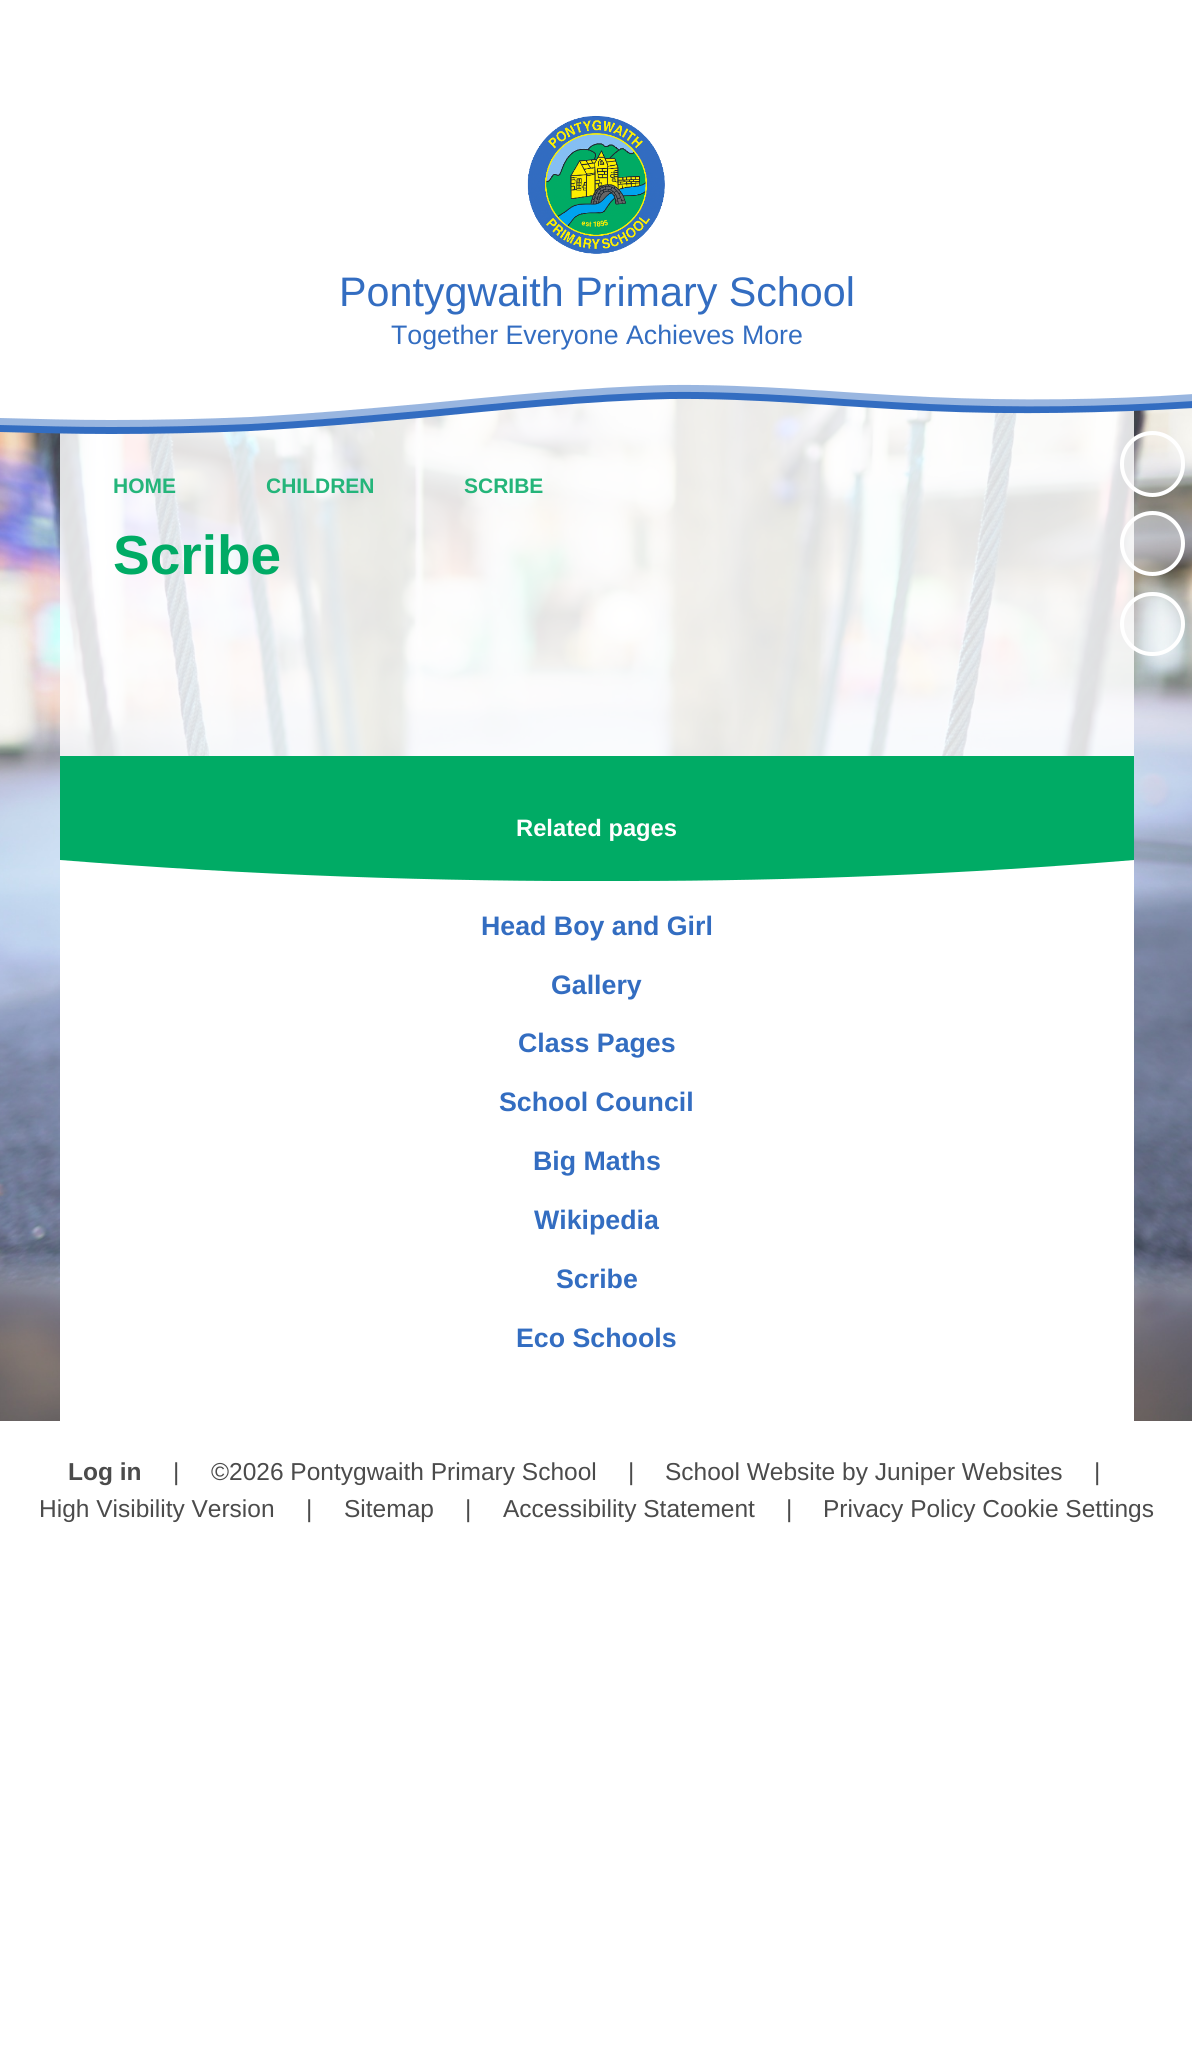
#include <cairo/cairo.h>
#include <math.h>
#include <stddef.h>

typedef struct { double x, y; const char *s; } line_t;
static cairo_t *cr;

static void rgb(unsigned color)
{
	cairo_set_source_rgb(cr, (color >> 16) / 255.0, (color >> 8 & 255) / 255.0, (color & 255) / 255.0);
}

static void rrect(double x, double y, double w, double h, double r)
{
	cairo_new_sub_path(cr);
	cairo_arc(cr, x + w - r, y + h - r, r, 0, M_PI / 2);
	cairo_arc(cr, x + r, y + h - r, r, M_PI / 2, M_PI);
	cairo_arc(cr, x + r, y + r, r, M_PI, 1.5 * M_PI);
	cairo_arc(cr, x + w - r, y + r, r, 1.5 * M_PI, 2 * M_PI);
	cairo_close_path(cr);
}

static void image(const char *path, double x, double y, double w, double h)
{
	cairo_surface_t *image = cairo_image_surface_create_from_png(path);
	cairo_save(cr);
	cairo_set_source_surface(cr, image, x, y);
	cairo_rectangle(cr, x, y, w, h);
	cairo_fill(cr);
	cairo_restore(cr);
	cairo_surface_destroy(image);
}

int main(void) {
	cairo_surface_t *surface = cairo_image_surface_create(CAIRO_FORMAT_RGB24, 1192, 2046);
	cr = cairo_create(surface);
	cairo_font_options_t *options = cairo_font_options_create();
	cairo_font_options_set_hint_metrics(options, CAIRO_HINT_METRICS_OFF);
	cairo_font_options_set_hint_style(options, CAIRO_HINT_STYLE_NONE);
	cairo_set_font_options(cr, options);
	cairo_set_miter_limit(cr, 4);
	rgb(0xffffff);
	cairo_paint(cr);
	image("img/1.png", 527, 115, 138, 139);
	image("img/2.png", 0, 398, 1192, 1023);
	cairo_set_source_rgba(cr, 1, 1, 1, 0.3);
	rrect(1122, 433, 61, 62, 30.5);
	cairo_fill_preserve(cr);
	rgb(0xffffff);
	cairo_set_line_width(cr, 4);
	cairo_stroke(cr);
	cairo_set_source_rgba(cr, 1, 1, 1, 0.3);
	cairo_arc(cr, 1152.5, 543.5, 30.5, 0, 2 * M_PI);
	cairo_fill_preserve(cr);
	rgb(0xffffff);
	cairo_stroke(cr);
	cairo_set_source_rgba(cr, 1, 1, 1, 0.3);
	rrect(1122, 594, 61, 60, 30);
	cairo_fill_preserve(cr);
	rgb(0xffffff);
	cairo_stroke(cr);
	cairo_set_source_rgba(cr, 1, 1, 1, 0.83);
	cairo_rectangle(cr, 60, 398, 1074, 358);
	cairo_fill(cr);
	rgb(0x336dc1);
	cairo_new_path(cr);
	cairo_move_to(cr, 111, 434);
	cairo_curve_to(cr, 74, 434, 37, 433, 0, 432);
	cairo_line_to(cr, 0, 376);
	cairo_line_to(cr, 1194, 376);
	cairo_line_to(cr, 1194, 408);
	cairo_curve_to(cr, 1105, 413, 1017, 415, 929, 411);
	cairo_curve_to(cr, 842, 407, 756, 398, 670, 399);
	cairo_curve_to(cr, 586, 401, 503, 410, 419, 418);
	cairo_curve_to(cr, 363, 423, 307, 428, 250, 431);
	cairo_curve_to(cr, 204, 433, 158, 434, 111, 434);
	cairo_close_path(cr);
	cairo_fill(cr);
	cairo_set_source_rgba(cr, 1, 1, 1, 0.5);
	cairo_new_path(cr);
	cairo_move_to(cr, 111, 427);
	cairo_curve_to(cr, 74, 427, 37, 426, 0, 425);
	cairo_line_to(cr, 0, 369);
	cairo_line_to(cr, 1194, 369);
	cairo_line_to(cr, 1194, 401);
	cairo_curve_to(cr, 1105, 407, 1017, 408, 929, 404);
	cairo_curve_to(cr, 842, 400, 756, 391, 670, 392);
	cairo_curve_to(cr, 586, 394, 503, 403, 419, 411);
	cairo_curve_to(cr, 363, 416, 307, 421, 250, 424);
	cairo_curve_to(cr, 204, 426, 158, 427, 111, 427);
	cairo_close_path(cr);
	cairo_fill(cr);
	rgb(0xffffff);
	cairo_new_path(cr);
	cairo_move_to(cr, 111, 420);
	cairo_curve_to(cr, 74, 420, 37, 419, 0, 418);
	cairo_line_to(cr, 0, 362);
	cairo_line_to(cr, 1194, 362);
	cairo_line_to(cr, 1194, 394);
	cairo_curve_to(cr, 1105, 400, 1017, 401, 929, 397);
	cairo_curve_to(cr, 842, 393, 756, 384, 670, 385);
	cairo_curve_to(cr, 586, 387, 503, 396, 419, 404);
	cairo_curve_to(cr, 363, 409, 307, 414, 250, 417);
	cairo_curve_to(cr, 204, 419, 158, 420, 111, 420);
	cairo_close_path(cr);
	cairo_fill(cr);
	cairo_rectangle(cr, 60, 860, 1074, 561);
	cairo_fill(cr);
	rgb(0x00ab65);
	cairo_rectangle(cr, 60, 756, 1074, 86);
	cairo_fill(cr);
	cairo_save(cr);
	cairo_rectangle(cr, 60, 842, 1074, 39);
	cairo_clip(cr);
	cairo_new_path(cr);
	cairo_move_to(cr, 1134, 841);
	cairo_line_to(cr, 60, 841);
	cairo_line_to(cr, 60, 860);
	cairo_curve_to(cr, 248, 875, 437, 882, 626, 881);
	cairo_curve_to(cr, 795, 881, 965, 874, 1134, 860);
	cairo_close_path(cr);
	cairo_fill(cr);
	cairo_restore(cr);
	cairo_select_font_face(cr, "Liberation Sans", CAIRO_FONT_SLANT_NORMAL, CAIRO_FONT_WEIGHT_NORMAL);
	cairo_set_font_size(cr, 41.25);
	rgb(0x336dc1);
	cairo_move_to(cr, 339, 306);
	cairo_show_text(cr, "Pontygwaith Primary School");
	cairo_set_font_size(cr, 26.75);
	cairo_move_to(cr, 391, 344);
	cairo_show_text(cr, "Together Everyone Achieves More");
	cairo_select_font_face(cr, "Liberation Sans", CAIRO_FONT_SLANT_NORMAL, CAIRO_FONT_WEIGHT_BOLD);
	cairo_set_font_size(cr, 21);
	rgb(0x24b57a);
	{
		static const line_t items[] = {
			{113, 493, "HOME"},
			{266, 493, "CHILDREN"},
			{464, 493, "SCRIBE"},
		};
		for (size_t i = 0; i < sizeof items / sizeof *items; i++) {
			cairo_move_to(cr, items[i].x, items[i].y);
			cairo_show_text(cr, items[i].s);
		}
	}
	cairo_set_font_size(cr, 55);
	rgb(0x00ab65);
	cairo_move_to(cr, 113, 574);
	cairo_show_text(cr, "Scribe");
	cairo_set_font_size(cr, 23.75);
	rgb(0xffffff);
	cairo_move_to(cr, 516, 836);
	cairo_show_text(cr, "Related pages");
	cairo_set_font_size(cr, 26.75);
	rgb(0x336dc1);
	{
		static const line_t items[] = {
			{481, 935, "Head Boy and Girl"},
			{551, 994, "Gallery"},
			{518, 1052, "Class Pages"},
			{499, 1111, "School Council"},
			{533, 1170, "Big Maths"},
			{534, 1229, "Wikipedia"},
			{556, 1288, "Scribe"},
			{516, 1347, "Eco Schools"},
		};
		for (size_t i = 0; i < sizeof items / sizeof *items; i++) {
			cairo_move_to(cr, items[i].x, items[i].y);
			cairo_show_text(cr, items[i].s);
		}
	}
	cairo_set_font_size(cr, 24.5);
	rgb(0x4b4b4b);
	cairo_move_to(cr, 68, 1480);
	cairo_show_text(cr, "Log in");
	cairo_select_font_face(cr, "Liberation Sans", CAIRO_FONT_SLANT_NORMAL, CAIRO_FONT_WEIGHT_NORMAL);
	{
		static const line_t items[] = {
			{173, 1480, "|"},
			{211, 1480, "©2026 Pontygwaith Primary School"},
			{628, 1480, "|"},
			{665, 1480, "School Website by Juniper Websites"},
			{1094, 1480, "|"},
			{39, 1517, "High Visibility Version"},
			{306, 1517, "|"},
			{344, 1517, "Sitemap"},
			{465, 1517, "|"},
			{503, 1517, "Accessibility Statement"},
			{786, 1517, "|"},
			{823, 1517, "Privacy Policy Cookie Settings"},
		};
		for (size_t i = 0; i < sizeof items / sizeof *items; i++) {
			cairo_move_to(cr, items[i].x, items[i].y);
			cairo_show_text(cr, items[i].s);
		}
	}
	cairo_surface_write_to_png(surface, "page.png");
	cairo_font_options_destroy(options);
	cairo_destroy(cr);
	cairo_surface_destroy(surface);
	return 0;
}
